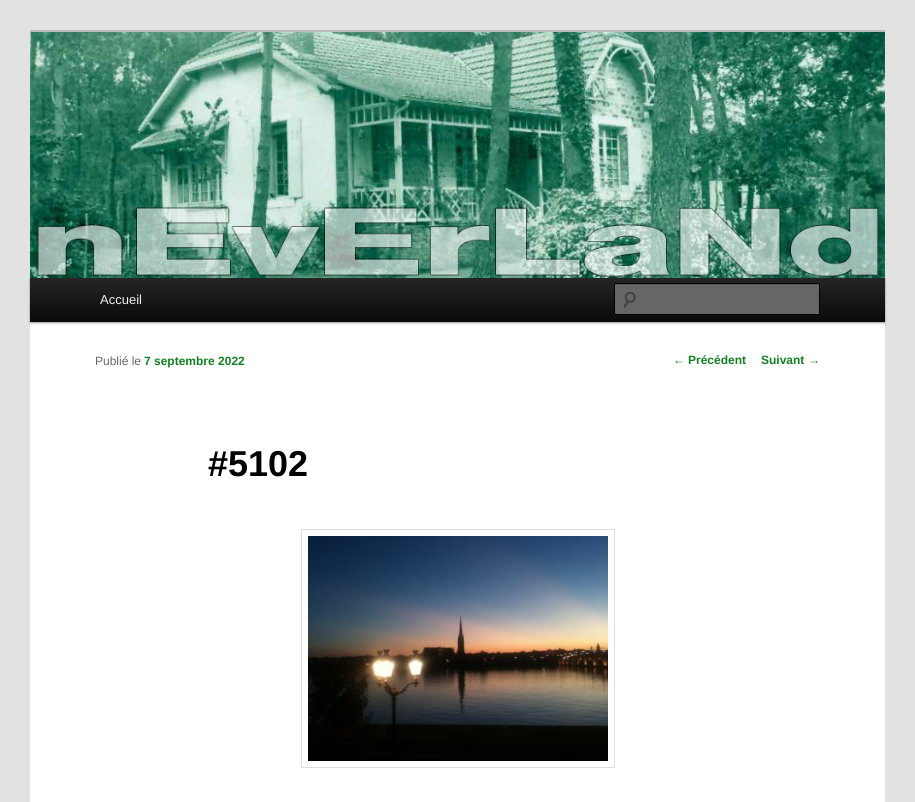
#include <cairo/cairo.h>
#include <math.h>
#include <stddef.h>

static cairo_t *cr;

static void rgb(unsigned color)
{
	cairo_set_source_rgb(cr, (color >> 16) / 255.0, (color >> 8 & 255) / 255.0, (color & 255) / 255.0);
}

static void rrect(double x, double y, double w, double h, double r)
{
	cairo_new_sub_path(cr);
	cairo_arc(cr, x + w - r, y + h - r, r, 0, M_PI / 2);
	cairo_arc(cr, x + r, y + h - r, r, M_PI / 2, M_PI);
	cairo_arc(cr, x + r, y + r, r, M_PI, 1.5 * M_PI);
	cairo_arc(cr, x + w - r, y + r, r, 1.5 * M_PI, 2 * M_PI);
	cairo_close_path(cr);
}

static void soft_shadow(double x, double y, double w, double h, double r, double blur, double alpha)
{
	cairo_push_group_with_content(cr, CAIRO_CONTENT_ALPHA);
	cairo_set_operator(cr, CAIRO_OPERATOR_SOURCE);
	for (int i = 15; i >= -15 && fmin(w, h) + blur * i / 3 > 0; i -= 2) {
		double e = blur * i / 6;
		cairo_set_source_rgba(cr, 0, 0, 0, alpha * erfc((i - 1) / 8.5) / 2);
		rrect(x - e, y - e, w + 2 * e, h + 2 * e, fmax(0, fmin(r + e + blur * .6, fmin(w, h) / 2 + e)));
		cairo_fill(cr);
	}
	cairo_pattern_t *soft = cairo_pop_group(cr);
	cairo_mask(cr, soft);
	cairo_pattern_destroy(soft);
}

static void image(const char *path, double x, double y, double w, double h)
{
	cairo_surface_t *image = cairo_image_surface_create_from_png(path);
	cairo_save(cr);
	cairo_set_source_surface(cr, image, x, y);
	cairo_rectangle(cr, x, y, w, h);
	cairo_fill(cr);
	cairo_restore(cr);
	cairo_surface_destroy(image);
}

int main(void) {
	cairo_surface_t *surface = cairo_image_surface_create(CAIRO_FORMAT_RGB24, 915, 802);
	cr = cairo_create(surface);
	cairo_font_options_t *options = cairo_font_options_create();
	cairo_font_options_set_hint_metrics(options, CAIRO_HINT_METRICS_OFF);
	cairo_font_options_set_hint_style(options, CAIRO_HINT_STYLE_NONE);
	cairo_set_font_options(cr, options);
	cairo_set_miter_limit(cr, 4);
	cairo_pattern_t *gradient;
	rgb(0xe2e2e2);
	cairo_paint(cr);
	rgb(0xffffff);
	cairo_rectangle(cr, 30, 322, 855, 480);
	cairo_fill(cr);
	rgb(0xbbbbbb);
	cairo_rectangle(cr, 30, 30, 855, 2);
	cairo_fill(cr);
	rgb(0x000000);
	soft_shadow(30, 279, 855, 44, 0, 1, 0.4);
	image("img/1.png", 30, 32, 855, 246);
	gradient = cairo_pattern_create_linear(458, 278, 458, 322);
	cairo_pattern_add_color_stop_rgba(gradient, 0, 0.145, 0.145, 0.145, 1);
	cairo_pattern_add_color_stop_rgba(gradient, 1, 0.039, 0.039, 0.039, 1);
	cairo_set_source(cr, gradient);
	cairo_pattern_destroy(gradient);
	cairo_rectangle(cr, 30, 278, 855, 44);
	cairo_fill(cr);
	rgb(0x666666);
	rrect(614, 283, 206, 32, 2);
	cairo_fill(cr);
	image("img/2.png", 623, 291, 13, 17);
	rgb(0x5c5c5c);
	cairo_new_path(cr);
	cairo_move_to(cr, 616, 285);
	cairo_line_to(cr, 819, 285);
	cairo_line_to(cr, 819, 286);
	cairo_line_to(cr, 819, 284);
	cairo_line_to(cr, 818, 284);
	cairo_line_to(cr, 616, 284);
	cairo_curve_to(cr, 615, 284, 615, 285, 615, 286);
	cairo_curve_to(cr, 615, 285, 615, 285, 616, 285);
	cairo_close_path(cr);
	cairo_fill(cr);
	rrect(614.5, 283.5, 205, 31, 1.5);
	rgb(0x000000);
	cairo_set_line_width(cr, 1);
	cairo_stroke(cr);
	cairo_rectangle(cr, 301.5, 529.5, 313, 238);
	rgb(0xdddddd);
	cairo_stroke(cr);
	image("img/3.png", 308, 536, 300, 225);
	cairo_select_font_face(cr, "Liberation Sans", CAIRO_FONT_SLANT_NORMAL, CAIRO_FONT_WEIGHT_NORMAL);
	cairo_set_font_size(cr, 13);
	rgb(0xeeeeee);
	cairo_move_to(cr, 100, 304);
	cairo_show_text(cr, "Accueil");
	cairo_set_font_size(cr, 12);
	rgb(0x666666);
	cairo_move_to(cr, 95, 365);
	cairo_show_text(cr, "Publié le");
	cairo_select_font_face(cr, "Liberation Sans", CAIRO_FONT_SLANT_NORMAL, CAIRO_FONT_WEIGHT_BOLD);
	rgb(0x128120);
	cairo_move_to(cr, 144, 365);
	cairo_show_text(cr, "7 septembre 2022");
	cairo_set_font_size(cr, 36);
	rgb(0x000000);
	cairo_move_to(cr, 208, 476);
	cairo_show_text(cr, "#5102");
	cairo_select_font_face(cr, "Liberation Sans", CAIRO_FONT_SLANT_NORMAL, CAIRO_FONT_WEIGHT_NORMAL);
	cairo_set_font_size(cr, 12);
	rgb(0x128120);
	cairo_move_to(cr, 673, 364);
	cairo_show_text(cr, "←");
	cairo_select_font_face(cr, "Liberation Sans", CAIRO_FONT_SLANT_NORMAL, CAIRO_FONT_WEIGHT_BOLD);
	cairo_move_to(cr, 688, 364);
	cairo_show_text(cr, "Précédent");
	cairo_move_to(cr, 761, 364);
	cairo_show_text(cr, "Suivant");
	cairo_select_font_face(cr, "Liberation Sans", CAIRO_FONT_SLANT_NORMAL, CAIRO_FONT_WEIGHT_NORMAL);
	cairo_move_to(cr, 808, 364);
	cairo_show_text(cr, "→");
	cairo_surface_write_to_png(surface, "page.png");
	cairo_font_options_destroy(options);
	cairo_destroy(cr);
	cairo_surface_destroy(surface);
	return 0;
}
